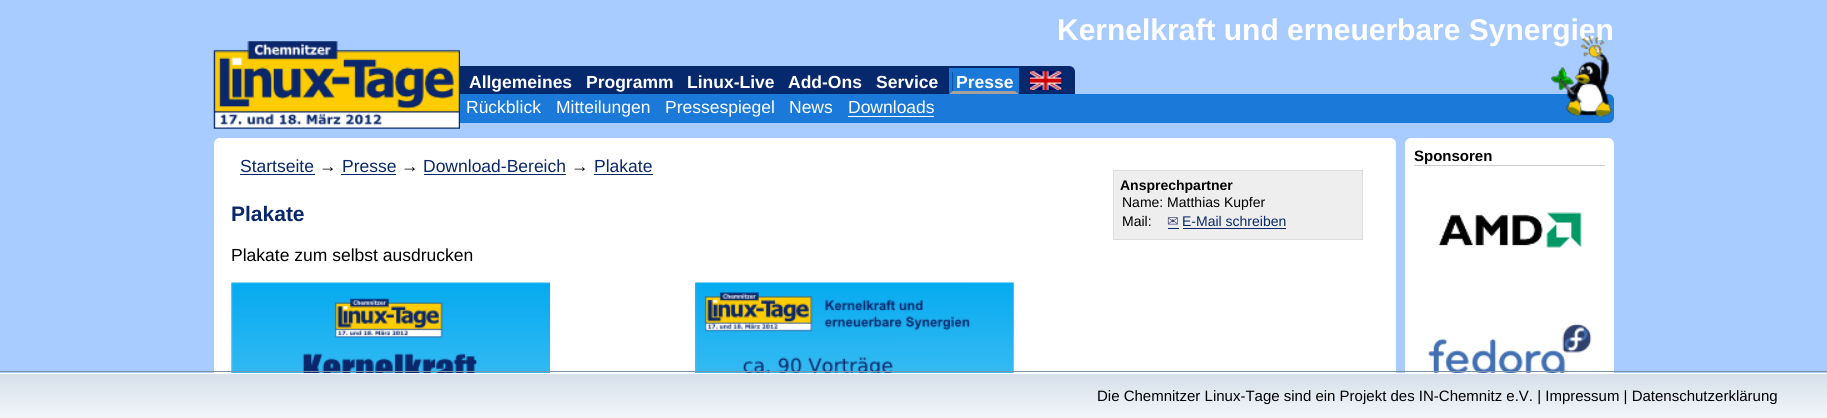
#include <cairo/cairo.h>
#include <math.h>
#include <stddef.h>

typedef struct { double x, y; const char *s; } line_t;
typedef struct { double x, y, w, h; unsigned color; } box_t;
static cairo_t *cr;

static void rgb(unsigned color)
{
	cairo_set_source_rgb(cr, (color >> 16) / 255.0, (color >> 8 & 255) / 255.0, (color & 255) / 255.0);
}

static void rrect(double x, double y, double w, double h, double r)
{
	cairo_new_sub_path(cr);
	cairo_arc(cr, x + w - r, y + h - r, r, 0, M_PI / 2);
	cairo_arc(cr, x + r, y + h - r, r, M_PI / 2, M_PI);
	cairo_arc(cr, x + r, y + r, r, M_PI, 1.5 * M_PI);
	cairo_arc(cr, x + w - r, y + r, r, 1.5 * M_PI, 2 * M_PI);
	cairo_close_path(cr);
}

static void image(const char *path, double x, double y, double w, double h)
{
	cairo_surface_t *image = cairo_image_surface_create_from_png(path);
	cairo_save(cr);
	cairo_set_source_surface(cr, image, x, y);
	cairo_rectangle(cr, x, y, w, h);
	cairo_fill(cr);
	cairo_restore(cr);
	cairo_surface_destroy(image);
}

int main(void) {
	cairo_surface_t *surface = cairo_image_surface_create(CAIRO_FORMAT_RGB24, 1827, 418);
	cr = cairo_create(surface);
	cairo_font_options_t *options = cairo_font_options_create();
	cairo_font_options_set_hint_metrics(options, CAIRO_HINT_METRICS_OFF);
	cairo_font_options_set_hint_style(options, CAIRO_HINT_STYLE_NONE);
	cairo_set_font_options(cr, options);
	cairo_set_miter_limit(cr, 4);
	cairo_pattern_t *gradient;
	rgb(0xa8ccff);
	cairo_paint(cr);
	rgb(0x06286d);
	cairo_new_path(cr);
	cairo_move_to(cr, 220, 66);
	cairo_line_to(cr, 1069, 66);
	cairo_curve_to(cr, 1072.5, 66, 1075, 68.5, 1075, 72);
	cairo_line_to(cr, 1075, 94);
	cairo_line_to(cr, 214, 94);
	cairo_line_to(cr, 214, 72);
	cairo_curve_to(cr, 214, 68.5, 216.5, 66, 220, 66);
	cairo_close_path(cr);
	cairo_fill(cr);
	rgb(0x1b79d9);
	cairo_rectangle(cr, 953, 72, 62, 19);
	cairo_fill(cr);
	cairo_rectangle(cr, 949, 68, 70, 4);
	cairo_fill(cr);
	cairo_new_path(cr);
	cairo_move_to(cr, 1019, 67.5);
	cairo_line_to(cr, 1019, 94);
	cairo_line_to(cr, 1015, 91);
	cairo_line_to(cr, 1015, 71);
	cairo_close_path(cr);
	cairo_fill(cr);
	rgb(0xa5a19c);
	cairo_new_path(cr);
	cairo_move_to(cr, 1019, 94);
	cairo_line_to(cr, 949, 94);
	cairo_line_to(cr, 952, 91);
	cairo_line_to(cr, 1015, 91);
	cairo_close_path(cr);
	cairo_fill(cr);
	rgb(0x1b79d9);
	cairo_new_path(cr);
	cairo_move_to(cr, 949, 94);
	cairo_line_to(cr, 949, 67.5);
	cairo_line_to(cr, 952.5, 71);
	cairo_line_to(cr, 952.5, 91);
	cairo_close_path(cr);
	cairo_fill(cr);
	image("img/1.png", 1030, 71, 32, 19);
	cairo_new_path(cr);
	cairo_move_to(cr, 214, 94);
	cairo_line_to(cr, 1608, 94);
	cairo_curve_to(cr, 1611.5, 94, 1614, 96.5, 1614, 100);
	cairo_line_to(cr, 1614, 117);
	cairo_curve_to(cr, 1614, 120.5, 1611.5, 123, 1608, 123);
	cairo_line_to(cr, 220, 123);
	cairo_curve_to(cr, 216.5, 123, 214, 120.5, 214, 117);
	cairo_close_path(cr);
	cairo_fill(cr);
	image("img/2.png", 213, 41, 247, 88);
	rgb(0xffffff);
	cairo_rectangle(cr, 848, 116, 86, 1);
	cairo_fill(cr);
	rrect(1405, 138, 209, 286, 6);
	cairo_fill(cr);
	rgb(0xcccccc);
	cairo_rectangle(cr, 1414, 165, 191, 1);
	cairo_fill(cr);
	image("img/4.png", 1438, 212, 144, 36);
	image("img/5.png", 1428, 323, 164, 50);
	rgb(0xffffff);
	cairo_new_path(cr);
	cairo_move_to(cr, 220, 138);
	cairo_line_to(cr, 1390, 138);
	cairo_curve_to(cr, 1393.5, 138, 1396, 140.5, 1396, 144);
	cairo_line_to(cr, 1396, 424);
	cairo_line_to(cr, 214, 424);
	cairo_line_to(cr, 214, 144);
	cairo_curve_to(cr, 214, 140.5, 216.5, 138, 220, 138);
	cairo_close_path(cr);
	cairo_fill(cr);
	{
		static const box_t items[] = {
			{240, 174, 75, 1, 0x09276b},
			{341, 174, 55, 1, 0x09276b},
			{424, 174, 142, 1, 0x09276b},
			{594, 174, 59, 1, 0x09276b},
		};
		for (size_t i = 0; i < sizeof items / sizeof *items; i++) {
			rgb(items[i].color);
			cairo_rectangle(cr, items[i].x, items[i].y, items[i].w, items[i].h);
			cairo_fill(cr);
		}
	}
	rgb(0xeeeeee);
	cairo_rectangle(cr, 1113.5, 170.5, 249, 69);
	cairo_fill_preserve(cr);
	rgb(0xdddddd);
	cairo_set_line_width(cr, 1);
	cairo_stroke(cr);
	rgb(0x09276b);
	cairo_rectangle(cr, 1168, 228, 11, 1);
	cairo_fill(cr);
	cairo_rectangle(cr, 1183, 228, 103, 1);
	cairo_fill(cr);
	image("img/6.png", 231, 282, 319, 91);
	image("img/7.png", 695, 282, 319, 91);
	gradient = cairo_pattern_create_linear(914, 374, 914, 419);
	cairo_pattern_add_color_stop_rgba(gradient, 0, 0.839, 0.878, 0.922, 1);
	cairo_pattern_add_color_stop_rgba(gradient, 1, 0.949, 0.965, 0.976, 1);
	cairo_set_source(cr, gradient);
	cairo_pattern_destroy(gradient);
	cairo_rectangle(cr, 0, 374, 1827, 44);
	cairo_fill(cr);
	rgb(0xffffff);
	cairo_rectangle(cr, 0, 373, 1827, 1);
	cairo_fill(cr);
	cairo_rectangle(cr, -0.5, 371.5, 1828, 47);
	rgb(0x7b92a9);
	cairo_stroke(cr);
	cairo_select_font_face(cr, "Liberation Sans", CAIRO_FONT_SLANT_NORMAL, CAIRO_FONT_WEIGHT_BOLD);
	cairo_set_font_size(cr, 30);
	rgb(0xffffff);
	cairo_move_to(cr, 1057, 40);
	cairo_show_text(cr, "Kernelkraft und erneuerbare Synergien");
	cairo_set_font_size(cr, 17.5);
	{
		static const line_t items[] = {
			{469, 88, "Allgemeines"},
			{586, 88, "Programm"},
			{687, 88, "Linux-Live"},
			{788, 88, "Add-Ons"},
			{876, 88, "Service"},
			{956, 88, "Presse"},
		};
		for (size_t i = 0; i < sizeof items / sizeof *items; i++) {
			cairo_move_to(cr, items[i].x, items[i].y);
			cairo_show_text(cr, items[i].s);
		}
	}
	cairo_select_font_face(cr, "Liberation Sans", CAIRO_FONT_SLANT_NORMAL, CAIRO_FONT_WEIGHT_NORMAL);
	{
		static const line_t items[] = {
			{466, 113, "Rückblick"},
			{556, 113, "Mitteilungen"},
			{665, 113, "Pressespiegel"},
			{789, 113, "News"},
			{848, 113, "Downloads"},
		};
		for (size_t i = 0; i < sizeof items / sizeof *items; i++) {
			cairo_move_to(cr, items[i].x, items[i].y);
			cairo_show_text(cr, items[i].s);
		}
	}
	image("img/3.png", 1551, 36, 61, 81);
	cairo_select_font_face(cr, "Liberation Sans", CAIRO_FONT_SLANT_NORMAL, CAIRO_FONT_WEIGHT_BOLD);
	cairo_set_font_size(cr, 15);
	rgb(0x000000);
	cairo_move_to(cr, 1414, 161);
	cairo_show_text(cr, "Sponsoren");
	cairo_select_font_face(cr, "Liberation Sans", CAIRO_FONT_SLANT_NORMAL, CAIRO_FONT_WEIGHT_NORMAL);
	cairo_set_font_size(cr, 17.5);
	rgb(0x09276b);
	cairo_move_to(cr, 240, 172);
	cairo_show_text(cr, "Startseite");
	rgb(0x000000);
	cairo_move_to(cr, 319, 172);
	cairo_show_text(cr, "→");
	rgb(0x09276b);
	cairo_move_to(cr, 342, 172);
	cairo_show_text(cr, "Presse");
	rgb(0x000000);
	cairo_move_to(cr, 401, 172);
	cairo_show_text(cr, "→");
	rgb(0x09276b);
	cairo_move_to(cr, 423, 172);
	cairo_show_text(cr, "Download-Bereich");
	rgb(0x000000);
	cairo_move_to(cr, 571, 172);
	cairo_show_text(cr, "→");
	rgb(0x09276b);
	cairo_move_to(cr, 594, 172);
	cairo_show_text(cr, "Plakate");
	cairo_select_font_face(cr, "Liberation Sans", CAIRO_FONT_SLANT_NORMAL, CAIRO_FONT_WEIGHT_BOLD);
	cairo_set_font_size(cr, 14);
	rgb(0x000000);
	cairo_move_to(cr, 1120, 190);
	cairo_show_text(cr, "Ansprechpartner");
	cairo_select_font_face(cr, "Liberation Sans", CAIRO_FONT_SLANT_NORMAL, CAIRO_FONT_WEIGHT_NORMAL);
	cairo_move_to(cr, 1122, 207);
	cairo_show_text(cr, "Name: Matthias Kupfer");
	cairo_move_to(cr, 1122, 226);
	cairo_show_text(cr, "Mail:");
	cairo_select_font_face(cr, "DejaVu Sans", CAIRO_FONT_SLANT_NORMAL, CAIRO_FONT_WEIGHT_NORMAL);
	rgb(0x444477);
	cairo_move_to(cr, 1167, 226);
	cairo_show_text(cr, "✉");
	cairo_select_font_face(cr, "Liberation Sans", CAIRO_FONT_SLANT_NORMAL, CAIRO_FONT_WEIGHT_NORMAL);
	rgb(0x09276b);
	cairo_move_to(cr, 1182, 226);
	cairo_show_text(cr, "E-Mail schreiben");
	cairo_select_font_face(cr, "Liberation Sans", CAIRO_FONT_SLANT_NORMAL, CAIRO_FONT_WEIGHT_BOLD);
	cairo_set_font_size(cr, 21);
	cairo_move_to(cr, 231, 221);
	cairo_show_text(cr, "Plakate");
	cairo_select_font_face(cr, "Liberation Sans", CAIRO_FONT_SLANT_NORMAL, CAIRO_FONT_WEIGHT_NORMAL);
	cairo_set_font_size(cr, 17.5);
	rgb(0x000000);
	cairo_move_to(cr, 231, 261);
	cairo_show_text(cr, "Plakate zum selbst ausdrucken");
	cairo_set_font_size(cr, 15);
	cairo_move_to(cr, 1097, 401);
	cairo_show_text(cr, "Die Chemnitzer Linux-Tage sind ein Projekt des IN-Chemnitz e.V. | Impressum | Datenschutzerklärung");
	cairo_surface_write_to_png(surface, "page.png");
	cairo_font_options_destroy(options);
	cairo_destroy(cr);
	cairo_surface_destroy(surface);
	return 0;
}
